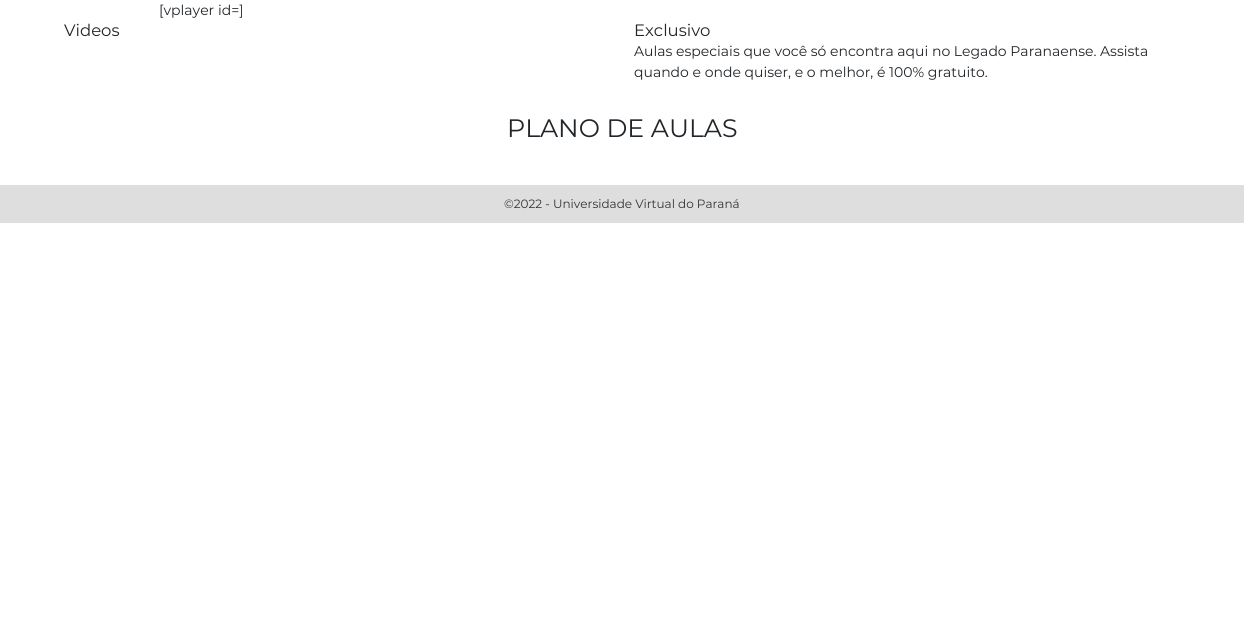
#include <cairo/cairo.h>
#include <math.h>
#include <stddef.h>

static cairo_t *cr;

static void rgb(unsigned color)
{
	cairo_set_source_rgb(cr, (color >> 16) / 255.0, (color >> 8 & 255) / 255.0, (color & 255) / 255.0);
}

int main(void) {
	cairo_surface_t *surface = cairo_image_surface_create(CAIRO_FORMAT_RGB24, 1244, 628);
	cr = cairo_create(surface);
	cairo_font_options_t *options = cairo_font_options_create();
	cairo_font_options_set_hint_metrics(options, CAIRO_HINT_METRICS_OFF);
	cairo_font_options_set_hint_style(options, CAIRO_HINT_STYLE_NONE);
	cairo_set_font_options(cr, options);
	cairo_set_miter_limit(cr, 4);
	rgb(0xffffff);
	cairo_paint(cr);
	rgb(0xdedede);
	cairo_rectangle(cr, 0, 185, 1244, 38);
	cairo_fill(cr);
	cairo_select_font_face(cr, "Montserrat", CAIRO_FONT_SLANT_NORMAL, CAIRO_FONT_WEIGHT_NORMAL);
	cairo_set_font_size(cr, 14);
	rgb(0x212529);
	cairo_move_to(cr, 159, 15);
	cairo_show_text(cr, "[vplayer id=]");
	cairo_set_font_size(cr, 16.5);
	cairo_move_to(cr, 64, 36);
	cairo_show_text(cr, "Videos");
	cairo_move_to(cr, 634, 36);
	cairo_show_text(cr, "Exclusivo");
	cairo_set_font_size(cr, 14);
	cairo_move_to(cr, 634, 56);
	cairo_show_text(cr, "Aulas especiais que você só encontra aqui no Legado Paranaense. Assista");
	cairo_move_to(cr, 634, 77);
	cairo_show_text(cr, "quando e onde quiser, e o melhor, é 100% gratuito.");
	cairo_set_font_size(cr, 25.25);
	cairo_move_to(cr, 507, 137);
	cairo_show_text(cr, "PLANO DE AULAS");
	cairo_set_font_size(cr, 12);
	rgb(0x333333);
	cairo_move_to(cr, 504, 208);
	cairo_show_text(cr, "©2022 - Universidade Virtual do Paraná");
	cairo_surface_write_to_png(surface, "page.png");
	cairo_font_options_destroy(options);
	cairo_destroy(cr);
	cairo_surface_destroy(surface);
	return 0;
}
